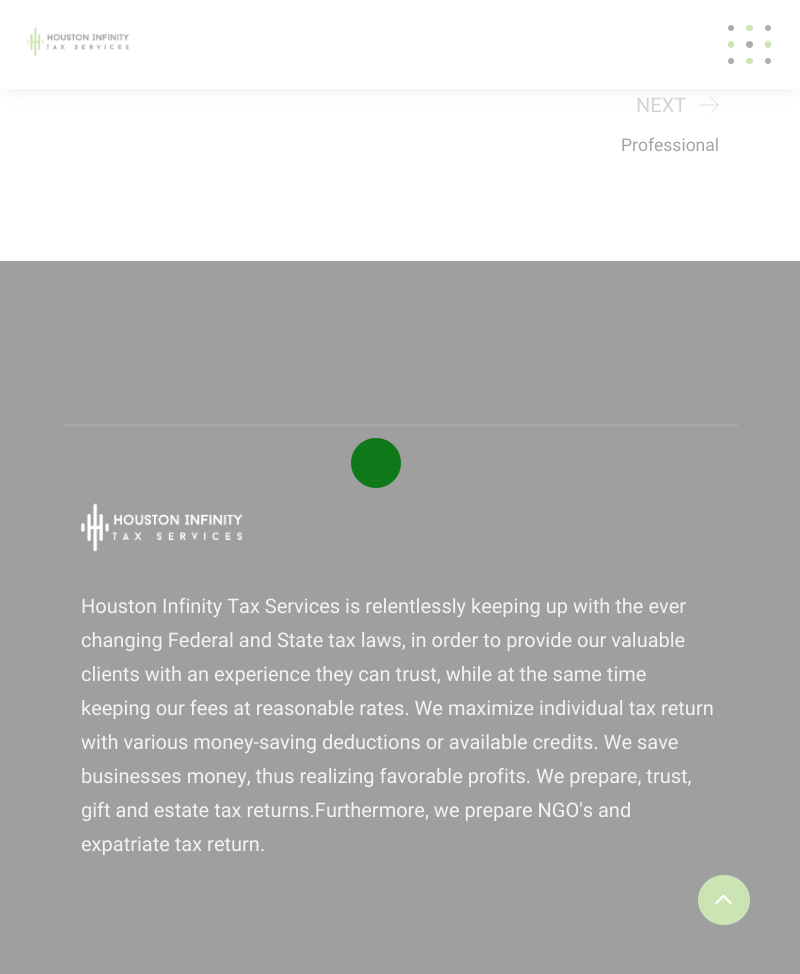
#include <cairo.h>
#include <math.h>
#include <stddef.h>


static void rgb(cairo_t *cr, int r, int g, int b)
{
	cairo_set_source_rgb(cr, r / 255.0, g / 255.0, b / 255.0);
}

static void face(cairo_t *cr, const char *family, double size, int italic, int bold)
{
	cairo_select_font_face(cr, family, italic ? CAIRO_FONT_SLANT_ITALIC : CAIRO_FONT_SLANT_NORMAL,
		bold ? CAIRO_FONT_WEIGHT_BOLD : CAIRO_FONT_WEIGHT_NORMAL);
	cairo_set_font_size(cr, size);
}

static void label(cairo_t *cr, double x, double y, const char *s)
{
	cairo_move_to(cr, x, y);
	cairo_show_text(cr, s);
}

static void rect(cairo_t *cr, double x, double y, double w, double h)
{
	cairo_rectangle(cr, x, y, w, h);
	cairo_fill(cr);
}

static void rrect(cairo_t *cr, double x, double y, double w, double h, double r)
{
	cairo_new_sub_path(cr);
	cairo_arc(cr, x + w - r, y + h - r, r, 0, M_PI / 2);
	cairo_arc(cr, x + r, y + h - r, r, M_PI / 2, M_PI);
	cairo_arc(cr, x + r, y + r, r, M_PI, 1.5 * M_PI);
	cairo_arc(cr, x + w - r, y + r, r, 1.5 * M_PI, 2 * M_PI);
	cairo_close_path(cr);
}

static void soft_shadow(cairo_t *cr, double x, double y, double w, double h, double r, double blur, double alpha)
{
	cairo_push_group_with_content(cr, CAIRO_CONTENT_ALPHA);
	cairo_set_operator(cr, CAIRO_OPERATOR_SOURCE);
	for (int i = 15; i >= -15 && fmin(w, h) + blur * i / 3 > 0; i -= 2) {
		double e = blur * i / 6;
		cairo_set_source_rgba(cr, 0, 0, 0, alpha * erfc((i - 1) / 8.5) / 2);
		rrect(cr, x - e, y - e, w + 2 * e, h + 2 * e, fmax(0, fmin(r + e + blur * .6, fmin(w, h) / 2 + e)));
		cairo_fill(cr);
	}
	cairo_pattern_t *soft = cairo_pop_group(cr);
	cairo_mask(cr, soft);
	cairo_pattern_destroy(soft);
}

static void image(cairo_t *cr, const char *path, double x, double y, double w, double h)
{
	cairo_surface_t *image = cairo_image_surface_create_from_png(path);
	cairo_save(cr);
	cairo_set_source_surface(cr, image, x, y);
	cairo_rectangle(cr, x, y, w, h);
	cairo_fill(cr);
	cairo_restore(cr);
	cairo_surface_destroy(image);
}

static void draw(cairo_t *cr) {
	rgb(cr, 255, 255, 255);
	cairo_paint(cr);
	image(cr, "image1.png", 698, 97, 21, 16);
	rgb(cr, 153, 153, 153);
	soft_shadow(cr, 13, 13, 775, 63, 0, 12.5, 0.8);
	rgb(cr, 255, 255, 255);
	rect(cr, 0, 0, 800, 89);
	image(cr, "image0.png", 26, 27, 104, 30);
	rgb(cr, 173, 173, 173);
	cairo_arc(cr, 731, 28, 3, 0, 2 * M_PI);
	cairo_fill(cr);
	rgb(cr, 204, 228, 179);
	rrect(cr, 746, 25, 7, 6, 3);
	cairo_fill(cr);
	rgb(cr, 173, 173, 173);
	cairo_arc(cr, 768, 28, 3, 0, 2 * M_PI);
	cairo_fill(cr);
	rgb(cr, 204, 228, 179);
	rrect(cr, 728, 41, 6, 7, 3);
	cairo_fill(cr);
	rgb(cr, 173, 173, 173);
	cairo_arc(cr, 749.5, 44.5, 3.5, 0, 2 * M_PI);
	cairo_fill(cr);
	rgb(cr, 204, 228, 179);
	rrect(cr, 765, 41, 6, 7, 3);
	cairo_fill(cr);
	rgb(cr, 173, 173, 173);
	cairo_arc(cr, 731, 61, 3, 0, 2 * M_PI);
	cairo_fill(cr);
	rgb(cr, 204, 228, 179);
	rrect(cr, 746, 58, 7, 6, 3);
	cairo_fill(cr);
	rgb(cr, 173, 173, 173);
	cairo_arc(cr, 768, 61, 3, 0, 2 * M_PI);
	cairo_fill(cr);
	face(cr, "Roboto", 20, 0, 0);
	rgb(cr, 211, 211, 211);
	label(cr, 636, 112, "NEXT");
	face(cr, "Roboto", 17.5, 0, 0);
	rgb(cr, 164, 164, 164);
	label(cr, 621, 151, "Professional");
	rgb(cr, 159, 159, 159);
	rect(cr, 0, 261, 800, 713);
	rgb(cr, 166, 167, 168);
	rect(cr, 63, 424, 675, 3);
	image(cr, "image2.png", 81, 503, 162, 49);
	face(cr, "Roboto", 20, 0, 0);
	rgb(cr, 243, 243, 243);
	label(cr, 81, 613, "Houston Infinity Tax Services is relentlessly keeping up with the ever");
	label(cr, 81, 647, "changing Federal and State tax laws, in order to provide our valuable");
	label(cr, 81, 681, "clients with an experience they can trust, while at the same time");
	label(cr, 81, 715, "keeping our fees at reasonable rates. We maximize individual tax return");
	label(cr, 81, 749, "with various money-saving deductions or available credits. We save");
	label(cr, 81, 783, "businesses money, thus realizing favorable profits. We prepare, trust,");
	label(cr, 81, 817, "gift and estate tax returns.Furthermore, we prepare NGO's and");
	label(cr, 81, 851, "expatriate tax return.");
	rgb(cr, 15, 120, 24);
	cairo_new_path(cr);
	cairo_arc(cr, 376, 463, 25, 0, 2 * M_PI);
	cairo_fill(cr);
	rgb(cr, 204, 228, 179);
	cairo_new_path(cr);
	cairo_move_to(cr, 724, 875);
	cairo_curve_to(cr, 738.5, 875, 750, 886, 750, 900);
	cairo_curve_to(cr, 750, 914, 738.5, 925, 724, 925);
	cairo_curve_to(cr, 709.5, 925, 698, 914, 698, 900);
	cairo_curve_to(cr, 698, 886, 709.5, 875, 724, 875);
	cairo_close_path(cr);
	cairo_fill(cr);
	image(cr, "image3.png", 715, 894, 17, 11);
}

int main(void) {
	cairo_surface_t *surface = cairo_image_surface_create(CAIRO_FORMAT_RGB24, 800, 974);
	cairo_t *cr = cairo_create(surface);
	cairo_font_options_t *options = cairo_font_options_create();
	cairo_font_options_set_hint_metrics(options, CAIRO_HINT_METRICS_OFF);
	cairo_font_options_set_hint_style(options, CAIRO_HINT_STYLE_NONE);
	cairo_set_font_options(cr, options);
	cairo_set_miter_limit(cr, 4);
	draw(cr);
	cairo_surface_write_to_png(surface, "render.png");
	cairo_font_options_destroy(options);
	cairo_destroy(cr);
	cairo_surface_destroy(surface);
	return 0;
}
